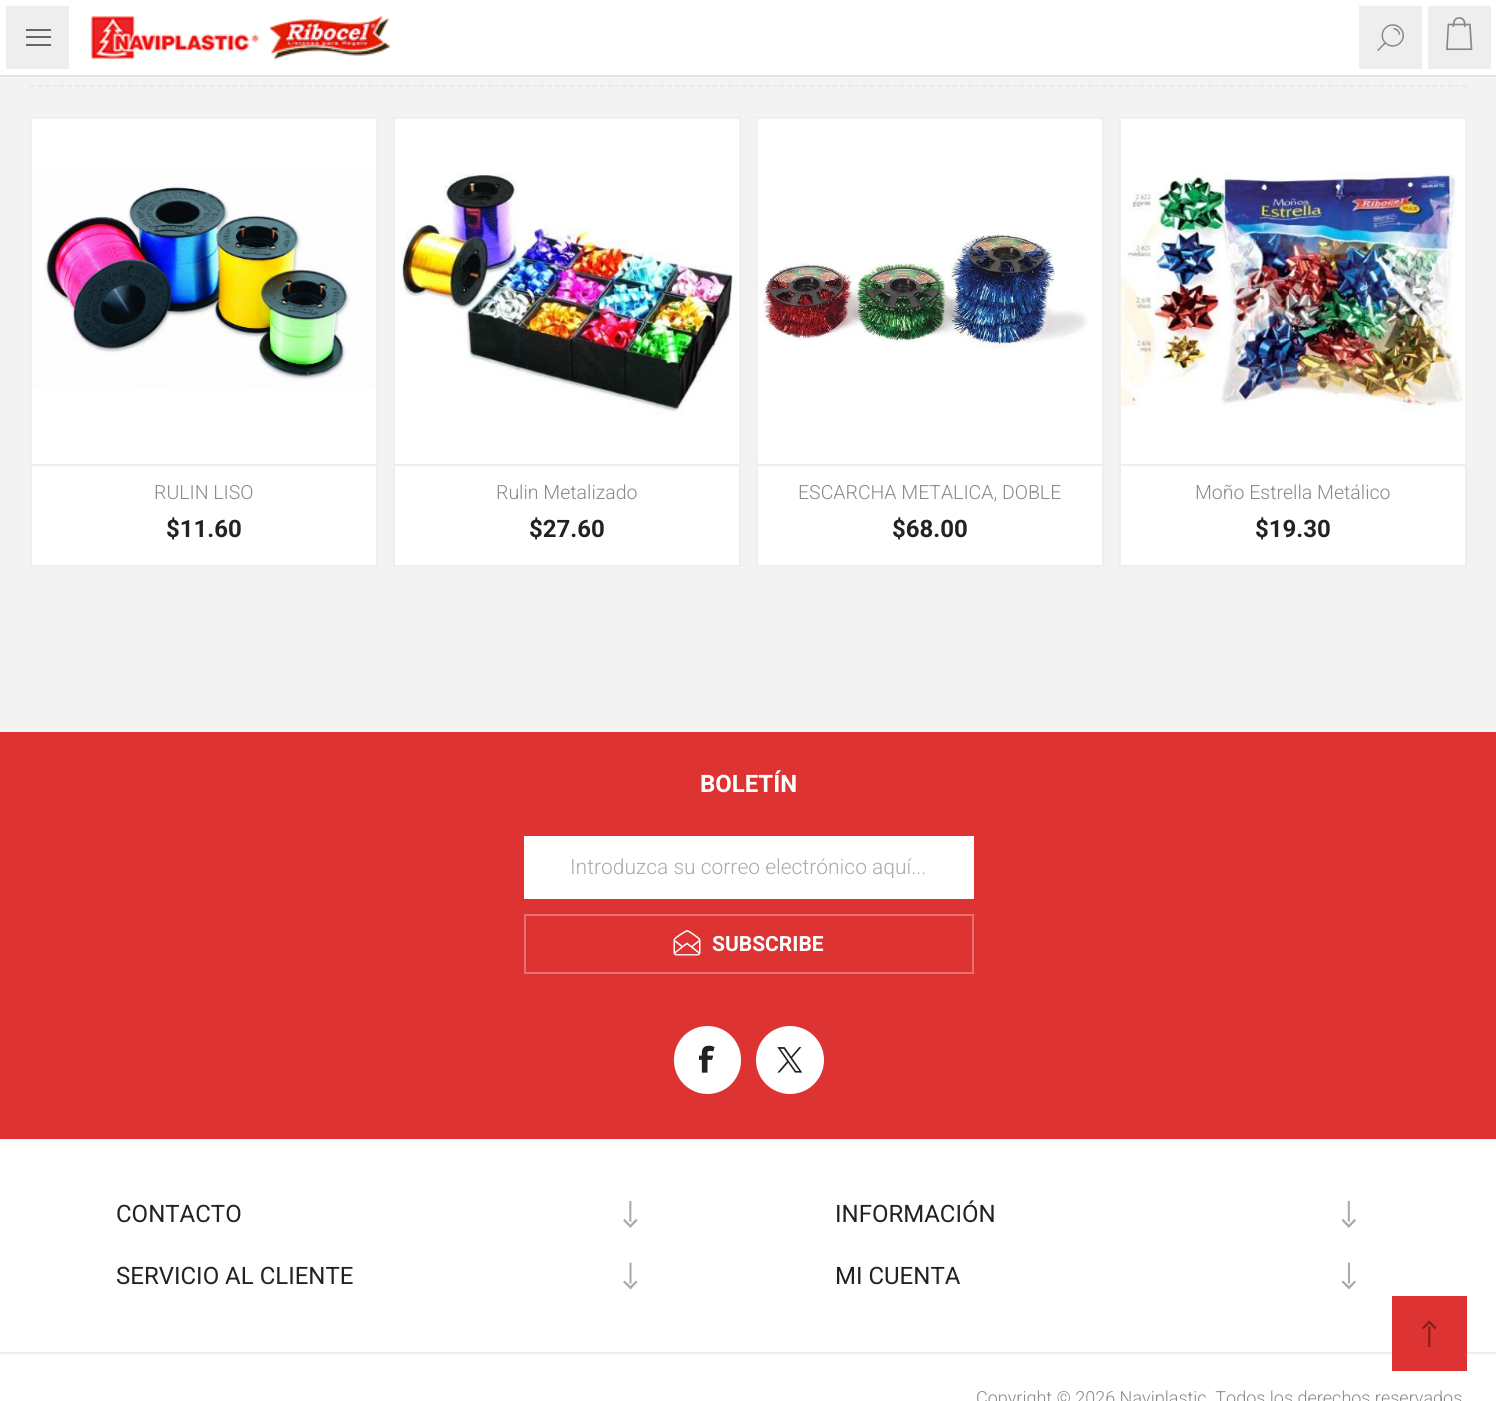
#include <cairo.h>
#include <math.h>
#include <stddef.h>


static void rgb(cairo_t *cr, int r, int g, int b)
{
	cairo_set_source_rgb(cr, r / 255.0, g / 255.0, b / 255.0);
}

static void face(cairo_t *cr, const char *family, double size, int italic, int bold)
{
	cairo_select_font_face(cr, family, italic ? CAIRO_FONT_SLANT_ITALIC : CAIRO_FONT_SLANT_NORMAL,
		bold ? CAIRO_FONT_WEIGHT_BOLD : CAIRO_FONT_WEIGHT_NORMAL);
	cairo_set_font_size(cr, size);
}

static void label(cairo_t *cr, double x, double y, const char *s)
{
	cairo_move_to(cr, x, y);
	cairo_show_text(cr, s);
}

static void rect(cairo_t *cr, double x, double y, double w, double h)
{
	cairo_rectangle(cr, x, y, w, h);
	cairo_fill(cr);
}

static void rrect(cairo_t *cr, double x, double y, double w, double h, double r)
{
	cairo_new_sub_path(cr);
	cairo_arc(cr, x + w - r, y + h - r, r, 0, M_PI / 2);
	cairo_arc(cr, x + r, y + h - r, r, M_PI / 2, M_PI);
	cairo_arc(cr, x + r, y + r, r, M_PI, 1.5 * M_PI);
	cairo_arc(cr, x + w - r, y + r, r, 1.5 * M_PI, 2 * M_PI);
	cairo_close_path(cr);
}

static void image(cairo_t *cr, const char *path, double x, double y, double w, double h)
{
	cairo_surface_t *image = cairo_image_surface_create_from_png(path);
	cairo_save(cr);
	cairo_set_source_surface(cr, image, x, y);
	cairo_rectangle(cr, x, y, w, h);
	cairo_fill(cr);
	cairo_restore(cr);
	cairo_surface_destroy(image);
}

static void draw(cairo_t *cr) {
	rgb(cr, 243, 243, 243);
	cairo_paint(cr);
	rgb(cr, 227, 227, 227);
	rect(cr, 0, 75, 1496, 2);
	rgb(cr, 255, 255, 255);
	rect(cr, 75, 0, 1347, 75);
	image(cr, "image0.png", 91, 15, 299, 45);
	rgb(cr, 238, 238, 238);
	rect(cr, 1359, 6, 63, 63);
	image(cr, "image1.png", 1377, 24, 27, 27);
	cairo_rectangle(cr, 3, 3, 69, 69);
	cairo_fill_preserve(cr);
	rgb(cr, 255, 255, 255);
	cairo_set_line_width(cr, 6);
	cairo_stroke(cr);
	rgb(cr, 102, 102, 102);
	rect(cr, 26, 29, 25, 2);
	rect(cr, 26, 36, 25, 2);
	rect(cr, 26, 44, 25, 2);
	rgb(cr, 238, 238, 238);
	cairo_rectangle(cr, 1425, 3, 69, 69);
	cairo_fill_preserve(cr);
	rgb(cr, 255, 255, 255);
	cairo_stroke(cr);
	image(cr, "image2.png", 1446, 17, 27, 34);
	cairo_new_path(cr);
	cairo_move_to(cr, 30, 86);
	cairo_line_to(cr, 1467, 86);
	rgb(cr, 230, 230, 230);
	cairo_set_line_width(cr, 1.5);
	cairo_set_dash(cr, (double[]){4.5, 3}, 2, 0);
	cairo_stroke(cr);
	rgb(cr, 255, 255, 255);
	rect(cr, 32, 463, 344, 102);
	cairo_rectangle(cr, 31, 118, 346, 448);
	rgb(cr, 238, 238, 238);
	cairo_set_line_width(cr, 2);
	cairo_set_dash(cr, NULL, 0, 0);
	cairo_stroke(cr);
	rect(cr, 32, 464, 345, 2);
	image(cr, "image3.png", 31, 118, 346, 345);
	face(cr, "Roboto Light", 19.5, 0, 0);
	rgb(cr, 136, 136, 136);
	label(cr, 154, 499, "RULIN LISO");
	face(cr, "Roboto", 24, 0, 1);
	rgb(cr, 34, 34, 34);
	label(cr, 166, 537, "$11.60");
	rgb(cr, 255, 255, 255);
	rect(cr, 395, 463, 344, 102);
	cairo_rectangle(cr, 394, 118, 346, 448);
	rgb(cr, 238, 238, 238);
	cairo_stroke(cr);
	rect(cr, 395, 464, 345, 2);
	image(cr, "image4.png", 394, 118, 346, 345);
	face(cr, "Roboto Light", 19.5, 0, 0);
	rgb(cr, 136, 136, 136);
	label(cr, 496, 499, "Rulin Metalizado");
	face(cr, "Roboto", 24, 0, 1);
	rgb(cr, 34, 34, 34);
	label(cr, 529, 537, "$27.60");
	rgb(cr, 255, 255, 255);
	rect(cr, 758, 463, 344, 102);
	cairo_rectangle(cr, 757, 118, 346, 448);
	rgb(cr, 238, 238, 238);
	cairo_stroke(cr);
	rect(cr, 758, 464, 345, 2);
	image(cr, "image5.png", 757, 118, 346, 345);
	face(cr, "Roboto Light", 19.5, 0, 0);
	rgb(cr, 136, 136, 136);
	label(cr, 798, 499, "ESCARCHA METALICA, DOBLE");
	face(cr, "Roboto", 24, 0, 1);
	rgb(cr, 34, 34, 34);
	label(cr, 892, 537, "$68.00");
	rgb(cr, 255, 255, 255);
	rect(cr, 1121, 463, 344, 102);
	cairo_rectangle(cr, 1120, 118, 346, 448);
	rgb(cr, 238, 238, 238);
	cairo_stroke(cr);
	rect(cr, 1121, 464, 345, 2);
	image(cr, "image6.png", 1120, 118, 346, 345);
	face(cr, "Roboto Light", 19.5, 0, 0);
	rgb(cr, 136, 136, 136);
	label(cr, 1195, 499, "Moño Estrella Metálico");
	face(cr, "Roboto", 24, 0, 1);
	rgb(cr, 34, 34, 34);
	label(cr, 1255, 537, "$19.30");
	rgb(cr, 255, 255, 255);
	rect(cr, 0, 1139, 1496, 213);
	rgb(cr, 221, 51, 51);
	rect(cr, 0, 732, 1496, 407);
	rgb(cr, 255, 255, 255);
	label(cr, 700, 792, "BOLETÍN");
	rect(cr, 524, 836, 450, 63);
	face(cr, "Roboto Light", 21, 0, 0);
	rgb(cr, 170, 170, 170);
	label(cr, 570, 874, "Introduzca su correo electrónico aquí...");
	image(cr, "image7.png", 673, 930, 28, 26);
	cairo_rectangle(cr, 525, 915, 448, 58);
	rgb(cr, 231, 112, 112);
	cairo_stroke(cr);
	face(cr, "Roboto", 21, 0, 1);
	rgb(cr, 255, 255, 255);
	label(cr, 712, 951, "SUBSCRIBE");
	rrect(cr, 674, 1026, 67, 68, 33.5);
	cairo_fill(cr);
	image(cr, "image8.png", 699, 1045, 16, 28);
	cairo_arc(cr, 790, 1060, 34, 0, 2 * M_PI);
	cairo_fill(cr);
	image(cr, "image9.png", 777, 1047, 26, 26);
	face(cr, "Roboto", 24, 0, 0);
	rgb(cr, 34, 34, 34);
	label(cr, 116, 1222, "CONTACTO");
	image(cr, "image10.png", 623, 1201, 15, 27);
	label(cr, 835, 1222, "INFORMACIÓN");
	image(cr, "image11.png", 1341, 1201, 15, 27);
	label(cr, 116, 1284, "SERVICIO AL CLIENTE");
	rgb(cr, 170, 170, 170);
	cairo_new_path(cr);
	cairo_move_to(cr, 631.5, 1283.5);
	cairo_line_to(cr, 629.5, 1283.5);
	cairo_line_to(cr, 629.5, 1262.5);
	cairo_line_to(cr, 631.5, 1262.5);
	cairo_close_path(cr);
	cairo_move_to(cr, 637.5, 1282);
	cairo_line_to(cr, 636, 1280.5);
	cairo_line_to(cr, 630.5, 1286);
	cairo_line_to(cr, 624.5, 1280.5);
	cairo_line_to(cr, 623, 1282);
	cairo_line_to(cr, 630.5, 1289.5);
	cairo_close_path(cr);
	cairo_fill(cr);
	rgb(cr, 34, 34, 34);
	label(cr, 835, 1284, "MI CUENTA");
	rgb(cr, 170, 170, 170);
	cairo_new_path(cr);
	cairo_move_to(cr, 1350, 1283.5);
	cairo_line_to(cr, 1348, 1283.5);
	cairo_line_to(cr, 1348, 1262.5);
	cairo_line_to(cr, 1350, 1262.5);
	cairo_close_path(cr);
	cairo_move_to(cr, 1356, 1282);
	cairo_line_to(cr, 1354.5, 1280.5);
	cairo_line_to(cr, 1349, 1286);
	cairo_line_to(cr, 1343, 1280.5);
	cairo_line_to(cr, 1341.5, 1282);
	cairo_line_to(cr, 1349, 1289.5);
	cairo_close_path(cr);
	cairo_fill(cr);
	rgb(cr, 255, 255, 255);
	rect(cr, 0, 1354, 1496, 47);
	rgb(cr, 238, 238, 238);
	rect(cr, 0, 1352, 1496, 2);
	face(cr, "Roboto Light", 18, 0, 0);
	rgb(cr, 136, 136, 136);
	label(cr, 976, 1404, "Copyright © 2026 Naviplastic. Todos los derechos reservados");
	rgb(cr, 221, 51, 51);
	rect(cr, 1392, 1296, 75, 75);
	image(cr, "image12.png", 1422, 1320, 15, 28);
}

int main(void) {
	cairo_surface_t *surface = cairo_image_surface_create(CAIRO_FORMAT_RGB24, 1496, 1401);
	cairo_t *cr = cairo_create(surface);
	cairo_font_options_t *options = cairo_font_options_create();
	cairo_font_options_set_hint_metrics(options, CAIRO_HINT_METRICS_OFF);
	cairo_font_options_set_hint_style(options, CAIRO_HINT_STYLE_NONE);
	cairo_set_font_options(cr, options);
	cairo_set_miter_limit(cr, 4);
	draw(cr);
	cairo_surface_write_to_png(surface, "render.png");
	cairo_font_options_destroy(options);
	cairo_destroy(cr);
	cairo_surface_destroy(surface);
	return 0;
}
